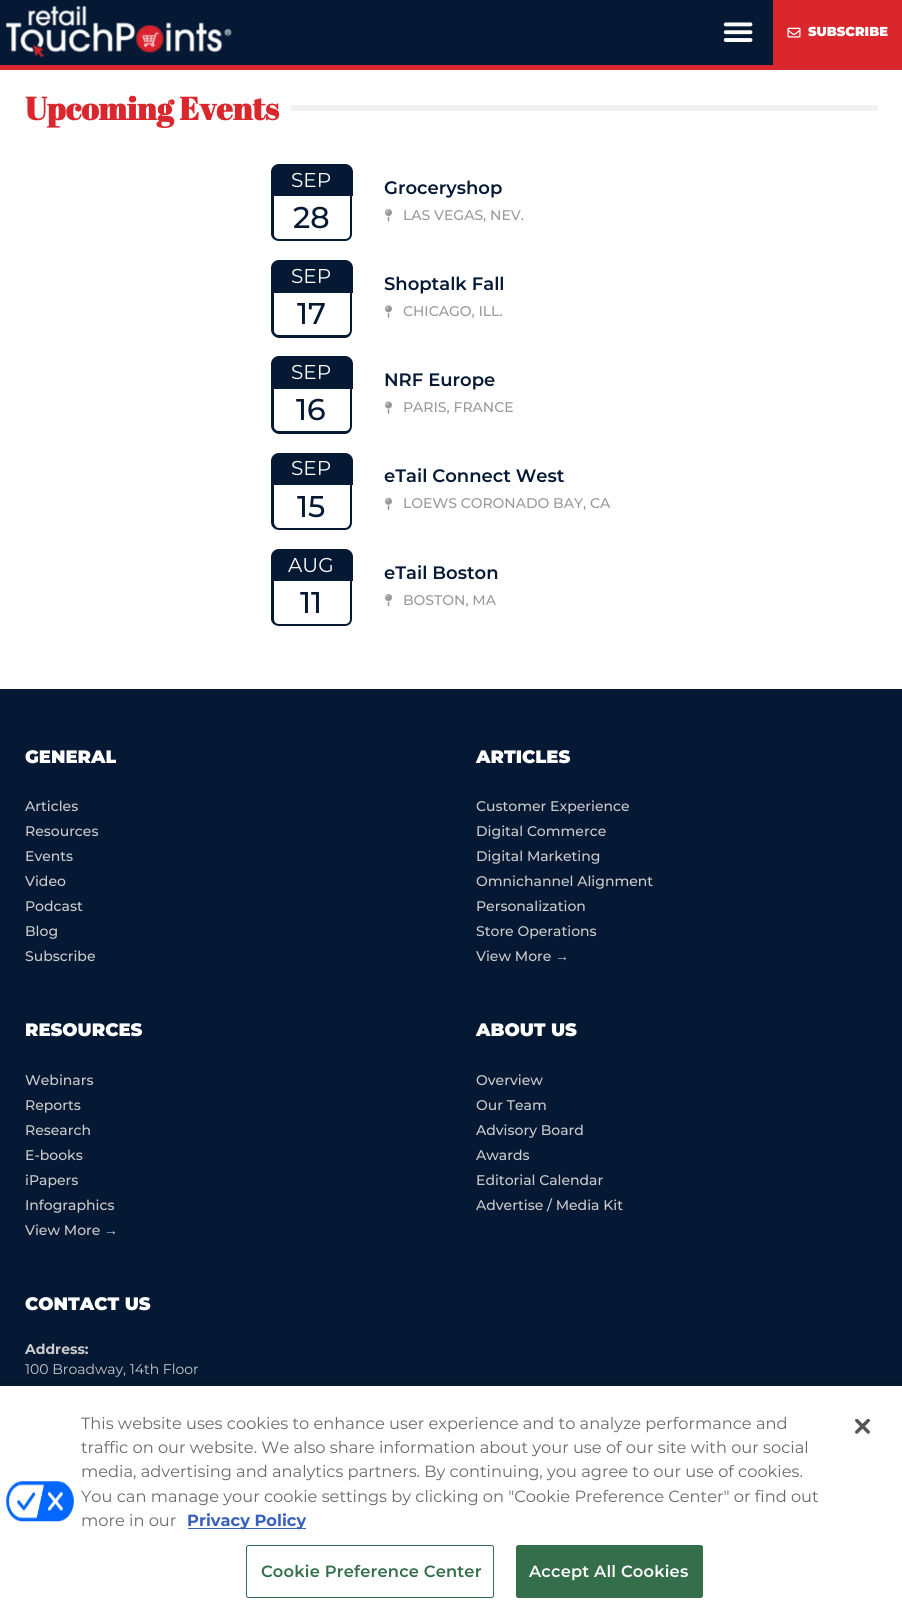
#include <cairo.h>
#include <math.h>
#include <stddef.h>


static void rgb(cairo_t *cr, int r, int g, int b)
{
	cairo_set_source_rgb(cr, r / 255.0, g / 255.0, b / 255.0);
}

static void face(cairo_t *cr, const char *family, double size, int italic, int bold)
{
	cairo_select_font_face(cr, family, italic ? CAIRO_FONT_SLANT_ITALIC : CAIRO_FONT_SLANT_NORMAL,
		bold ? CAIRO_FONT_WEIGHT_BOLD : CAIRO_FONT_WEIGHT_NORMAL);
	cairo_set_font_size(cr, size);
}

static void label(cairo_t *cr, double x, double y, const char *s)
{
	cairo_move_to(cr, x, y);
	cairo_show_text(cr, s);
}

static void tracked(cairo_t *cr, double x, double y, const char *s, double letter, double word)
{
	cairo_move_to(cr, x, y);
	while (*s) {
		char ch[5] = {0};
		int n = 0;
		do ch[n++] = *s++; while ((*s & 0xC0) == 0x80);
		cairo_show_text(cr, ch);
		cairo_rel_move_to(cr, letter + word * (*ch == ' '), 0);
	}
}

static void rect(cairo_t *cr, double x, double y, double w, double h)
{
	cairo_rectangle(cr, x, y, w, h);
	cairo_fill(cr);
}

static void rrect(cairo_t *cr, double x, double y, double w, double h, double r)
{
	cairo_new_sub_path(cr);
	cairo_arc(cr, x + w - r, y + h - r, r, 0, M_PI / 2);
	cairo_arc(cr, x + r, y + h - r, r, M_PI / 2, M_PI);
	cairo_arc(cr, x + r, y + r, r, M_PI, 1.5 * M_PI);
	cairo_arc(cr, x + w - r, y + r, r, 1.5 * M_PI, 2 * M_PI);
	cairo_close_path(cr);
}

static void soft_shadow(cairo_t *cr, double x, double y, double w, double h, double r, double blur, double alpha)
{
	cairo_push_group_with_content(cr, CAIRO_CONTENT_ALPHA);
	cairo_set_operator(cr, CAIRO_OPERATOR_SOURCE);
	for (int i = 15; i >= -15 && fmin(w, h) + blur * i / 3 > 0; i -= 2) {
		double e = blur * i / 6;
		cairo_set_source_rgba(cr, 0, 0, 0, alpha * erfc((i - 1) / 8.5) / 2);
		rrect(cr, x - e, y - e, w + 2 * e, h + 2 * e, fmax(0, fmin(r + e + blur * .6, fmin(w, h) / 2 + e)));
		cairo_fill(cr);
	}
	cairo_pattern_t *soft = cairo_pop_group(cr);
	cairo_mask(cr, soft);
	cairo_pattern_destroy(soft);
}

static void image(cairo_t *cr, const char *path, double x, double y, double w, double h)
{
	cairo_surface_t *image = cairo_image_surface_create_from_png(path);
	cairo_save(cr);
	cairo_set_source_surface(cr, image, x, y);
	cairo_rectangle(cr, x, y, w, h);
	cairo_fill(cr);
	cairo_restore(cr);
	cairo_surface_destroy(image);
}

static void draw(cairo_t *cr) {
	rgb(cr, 255, 255, 255);
	cairo_paint(cr);
	rgb(cr, 5, 25, 52);
	rect(cr, 0, 0, 773, 65);
	rgb(cr, 217, 39, 45);
	rect(cr, 0, 65, 902, 5);
	image(cr, "image0.png", 6, 6, 226, 52);
	rgb(cr, 5, 24, 49);
	rect(cr, 723, 16, 31, 32);
	image(cr, "image1.png", 723, 22, 30, 20);
	rgb(cr, 217, 39, 45);
	rect(cr, 773, 0, 129, 65);
	image(cr, "image2.png", 787, 27, 14, 11);
	face(cr, "Montserrat Black", 13, 0, 0);
	rgb(cr, 255, 255, 255);
	label(cr, 808, 36, "SUBSCRIBE");
	face(cr, "Abril Fatface", 32, 0, 1);
	rgb(cr, 217, 39, 45);
	label(cr, 25, 120, "Upcoming Events");
	rgb(cr, 242, 242, 242);
	rect(cr, 291, 105, 587, 6);
	rgb(cr, 5, 25, 52);
	cairo_new_path(cr);
	cairo_move_to(cr, 279, 164);
	cairo_line_to(cr, 345, 164);
	cairo_curve_to(cr, 349.5, 164, 353, 167.5, 353, 172);
	cairo_line_to(cr, 353, 196);
	cairo_line_to(cr, 271, 196);
	cairo_line_to(cr, 271, 172);
	cairo_curve_to(cr, 271, 167.5, 274.5, 164, 279, 164);
	cairo_close_path(cr);
	cairo_fill(cr);
	face(cr, "Montserrat", 20, 0, 0);
	rgb(cr, 255, 255, 255);
	label(cr, 291, 187, "SEP");
	rgb(cr, 5, 25, 52);
	cairo_set_fill_rule(cr, CAIRO_FILL_RULE_EVEN_ODD);
	cairo_new_path(cr);
	cairo_move_to(cr, 271, 196);
	cairo_line_to(cr, 352, 196);
	cairo_line_to(cr, 352, 234);
	cairo_curve_to(cr, 352, 238, 349, 241, 345, 241);
	cairo_line_to(cr, 279, 241);
	cairo_curve_to(cr, 275, 241, 271, 238, 271, 234);
	cairo_close_path(cr);
	cairo_move_to(cr, 274, 196);
	cairo_line_to(cr, 350, 196);
	cairo_line_to(cr, 350, 234);
	cairo_curve_to(cr, 350, 237, 348, 239, 345, 239);
	cairo_line_to(cr, 279, 239);
	cairo_curve_to(cr, 276, 239, 274, 237, 274, 234);
	cairo_close_path(cr);
	cairo_fill(cr);
	face(cr, "Montserrat Medium", 30, 0, 0);
	label(cr, 293, 228, "28");
	face(cr, "Montserrat SemiBold", 18, 0, 0);
	label(cr, 384, 194, "Groceryshop");
	image(cr, "image3.png", 385, 209, 7, 13);
	face(cr, "Montserrat Medium", 14, 0, 0);
	rgb(cr, 153, 153, 153);
	label(cr, 403, 220, "LAS VEGAS, NEV.");
	rgb(cr, 5, 25, 52);
	cairo_new_path(cr);
	cairo_move_to(cr, 279, 260);
	cairo_line_to(cr, 345, 260);
	cairo_curve_to(cr, 349.5, 260, 353, 263.5, 353, 268);
	cairo_line_to(cr, 353, 293);
	cairo_line_to(cr, 271, 293);
	cairo_line_to(cr, 271, 268);
	cairo_curve_to(cr, 271, 263.5, 274.5, 260, 279, 260);
	cairo_close_path(cr);
	cairo_fill(cr);
	face(cr, "Montserrat", 20, 0, 0);
	rgb(cr, 255, 255, 255);
	label(cr, 291, 283, "SEP");
	rgb(cr, 5, 25, 52);
	cairo_new_path(cr);
	cairo_move_to(cr, 271, 292);
	cairo_line_to(cr, 352, 292);
	cairo_line_to(cr, 352, 330);
	cairo_curve_to(cr, 352, 334, 349, 338, 345, 338);
	cairo_line_to(cr, 279, 338);
	cairo_curve_to(cr, 275, 338, 271, 334, 271, 330);
	cairo_close_path(cr);
	cairo_move_to(cr, 274, 292);
	cairo_line_to(cr, 350, 292);
	cairo_line_to(cr, 350, 330);
	cairo_curve_to(cr, 350, 333, 348, 335, 345, 335);
	cairo_line_to(cr, 279, 335);
	cairo_curve_to(cr, 276, 335, 274, 333, 274, 330);
	cairo_close_path(cr);
	cairo_fill(cr);
	face(cr, "Montserrat Medium", 30, 0, 0);
	label(cr, 297, 324, "17");
	face(cr, "Montserrat SemiBold", 18, 0, 0);
	label(cr, 384, 290, "Shoptalk Fall");
	image(cr, "image4.png", 385, 305, 7, 13);
	face(cr, "Montserrat Medium", 14, 0, 0);
	rgb(cr, 153, 153, 153);
	label(cr, 403, 316, "CHICAGO, ILL.");
	rgb(cr, 5, 25, 52);
	cairo_new_path(cr);
	cairo_move_to(cr, 279, 356);
	cairo_line_to(cr, 345, 356);
	cairo_curve_to(cr, 349.5, 356, 353, 359.5, 353, 364);
	cairo_line_to(cr, 353, 389);
	cairo_line_to(cr, 271, 389);
	cairo_line_to(cr, 271, 364);
	cairo_curve_to(cr, 271, 359.5, 274.5, 356, 279, 356);
	cairo_close_path(cr);
	cairo_fill(cr);
	face(cr, "Montserrat", 20, 0, 0);
	rgb(cr, 255, 255, 255);
	label(cr, 291, 379, "SEP");
	rgb(cr, 5, 25, 52);
	cairo_new_path(cr);
	cairo_move_to(cr, 271, 389);
	cairo_line_to(cr, 352, 389);
	cairo_line_to(cr, 352, 426);
	cairo_curve_to(cr, 352, 430, 349, 434, 345, 434);
	cairo_line_to(cr, 279, 434);
	cairo_curve_to(cr, 275, 434, 271, 430, 271, 426);
	cairo_close_path(cr);
	cairo_move_to(cr, 274, 389);
	cairo_line_to(cr, 350, 389);
	cairo_line_to(cr, 350, 426);
	cairo_curve_to(cr, 350, 429, 348, 431, 345, 431);
	cairo_line_to(cr, 279, 431);
	cairo_curve_to(cr, 276, 431, 274, 429, 274, 426);
	cairo_close_path(cr);
	cairo_fill(cr);
	face(cr, "Montserrat Medium", 30, 0, 0);
	label(cr, 296, 420, "16");
	face(cr, "Montserrat SemiBold", 18, 0, 0);
	label(cr, 384, 386, "NRF Europe");
	image(cr, "image5.png", 385, 401, 7, 13);
	face(cr, "Montserrat Medium", 14, 0, 0);
	rgb(cr, 153, 153, 153);
	label(cr, 403, 412, "PARIS, FRANCE");
	rgb(cr, 5, 25, 52);
	cairo_new_path(cr);
	cairo_move_to(cr, 279, 453);
	cairo_line_to(cr, 345, 453);
	cairo_curve_to(cr, 349.5, 453, 353, 456.5, 353, 461);
	cairo_line_to(cr, 353, 485);
	cairo_line_to(cr, 271, 485);
	cairo_line_to(cr, 271, 461);
	cairo_curve_to(cr, 271, 456.5, 274.5, 453, 279, 453);
	cairo_close_path(cr);
	cairo_fill(cr);
	face(cr, "Montserrat", 20, 0, 0);
	rgb(cr, 255, 255, 255);
	label(cr, 291, 475, "SEP");
	rgb(cr, 5, 25, 52);
	cairo_new_path(cr);
	cairo_move_to(cr, 271, 485);
	cairo_line_to(cr, 352, 485);
	cairo_line_to(cr, 352, 522);
	cairo_curve_to(cr, 352, 527, 349, 530, 345, 530);
	cairo_line_to(cr, 279, 530);
	cairo_curve_to(cr, 275, 530, 271, 527, 271, 522);
	cairo_close_path(cr);
	cairo_move_to(cr, 274, 485);
	cairo_line_to(cr, 350, 485);
	cairo_line_to(cr, 350, 522);
	cairo_curve_to(cr, 350, 525, 348, 528, 345, 528);
	cairo_line_to(cr, 279, 528);
	cairo_curve_to(cr, 276, 528, 274, 525, 274, 522);
	cairo_close_path(cr);
	cairo_fill(cr);
	face(cr, "Montserrat Medium", 30, 0, 0);
	label(cr, 297, 517, "15");
	face(cr, "Montserrat SemiBold", 18, 0, 0);
	label(cr, 384, 482, "eTail Connect West");
	image(cr, "image6.png", 385, 497, 7, 14);
	face(cr, "Montserrat Medium", 14, 0, 0);
	rgb(cr, 153, 153, 153);
	label(cr, 403, 508, "LOEWS CORONADO BAY, CA");
	rgb(cr, 5, 25, 52);
	cairo_new_path(cr);
	cairo_move_to(cr, 279, 549);
	cairo_line_to(cr, 345, 549);
	cairo_curve_to(cr, 349.5, 549, 353, 552.5, 353, 557);
	cairo_line_to(cr, 353, 581);
	cairo_line_to(cr, 271, 581);
	cairo_line_to(cr, 271, 557);
	cairo_curve_to(cr, 271, 552.5, 274.5, 549, 279, 549);
	cairo_close_path(cr);
	cairo_fill(cr);
	face(cr, "Montserrat", 20, 0, 0);
	rgb(cr, 255, 255, 255);
	label(cr, 288, 572, "AUG");
	rgb(cr, 5, 25, 52);
	cairo_new_path(cr);
	cairo_move_to(cr, 271, 581);
	cairo_line_to(cr, 352, 581);
	cairo_line_to(cr, 352, 619);
	cairo_curve_to(cr, 352, 623, 349, 626, 345, 626);
	cairo_line_to(cr, 279, 626);
	cairo_curve_to(cr, 275, 626, 271, 623, 271, 619);
	cairo_close_path(cr);
	cairo_move_to(cr, 274, 581);
	cairo_line_to(cr, 350, 581);
	cairo_line_to(cr, 350, 619);
	cairo_curve_to(cr, 350, 622, 348, 624, 345, 624);
	cairo_line_to(cr, 279, 624);
	cairo_curve_to(cr, 276, 624, 274, 622, 274, 619);
	cairo_close_path(cr);
	cairo_fill(cr);
	face(cr, "Montserrat Medium", 30, 0, 0);
	label(cr, 300, 613, "11");
	face(cr, "Montserrat SemiBold", 18, 0, 0);
	label(cr, 384, 579, "eTail Boston");
	image(cr, "image3.png", 385, 594, 7, 13);
	face(cr, "Montserrat Medium", 14, 0, 0);
	rgb(cr, 153, 153, 153);
	label(cr, 403, 605, "BOSTON, MA");
	rgb(cr, 5, 25, 52);
	rect(cr, 0, 689, 902, 697);
	face(cr, "Montserrat Black", 18, 0, 0);
	rgb(cr, 255, 255, 255);
	label(cr, 25, 763, "GENERAL");
	face(cr, "Montserrat Medium", 14, 0, 0);
	rgb(cr, 204, 204, 204);
	label(cr, 25, 811, "Articles");
	label(cr, 25, 836, "Resources");
	label(cr, 25, 861, "Events");
	label(cr, 25, 886, "Video");
	label(cr, 25, 911, "Podcast");
	label(cr, 25, 936, "Blog");
	label(cr, 25, 961, "Subscribe");
	face(cr, "Montserrat Black", 18, 0, 0);
	rgb(cr, 255, 255, 255);
	label(cr, 476, 763, "ARTICLES");
	face(cr, "Montserrat Medium", 14, 0, 0);
	rgb(cr, 204, 204, 204);
	label(cr, 476, 811, "Customer Experience");
	label(cr, 476, 836, "Digital Commerce");
	label(cr, 476, 861, "Digital Marketing");
	label(cr, 476, 886, "Omnichannel Alignment");
	label(cr, 476, 911, "Personalization");
	label(cr, 476, 936, "Store Operations");
	label(cr, 476, 961, "View More");
	face(cr, "Liberation Sans", 14, 0, 0);
	label(cr, 555, 961, "→");
	face(cr, "Montserrat Black", 18, 0, 0);
	rgb(cr, 255, 255, 255);
	label(cr, 25, 1036, "RESOURCES");
	face(cr, "Montserrat Medium", 14, 0, 0);
	rgb(cr, 204, 204, 204);
	label(cr, 25, 1085, "Webinars");
	label(cr, 25, 1110, "Reports");
	label(cr, 25, 1135, "Research");
	label(cr, 25, 1160, "E-books");
	label(cr, 25, 1185, "iPapers");
	label(cr, 25, 1210, "Infographics");
	label(cr, 25, 1235, "View More");
	face(cr, "Liberation Sans", 14, 0, 0);
	label(cr, 104, 1235, "→");
	face(cr, "Montserrat Black", 18, 0, 0);
	rgb(cr, 255, 255, 255);
	label(cr, 476, 1036, "ABOUT US");
	face(cr, "Montserrat Medium", 14, 0, 0);
	rgb(cr, 204, 204, 204);
	label(cr, 476, 1085, "Overview");
	label(cr, 476, 1110, "Our Team");
	label(cr, 476, 1135, "Advisory Board");
	label(cr, 476, 1160, "Awards");
	label(cr, 476, 1185, "Editorial Calendar");
	label(cr, 476, 1210, "Advertise / Media Kit");
	face(cr, "Montserrat Black", 18, 0, 0);
	rgb(cr, 255, 255, 255);
	label(cr, 25, 1310, "CONTACT US");
	face(cr, "Montserrat", 14, 0, 1);
	rgb(cr, 204, 204, 204);
	label(cr, 25, 1354, "Address:");
	face(cr, "Montserrat", 14, 0, 0);
	label(cr, 25, 1374, "100 Broadway, 14th Floor");
	rgb(cr, 0, 0, 0);
	soft_shadow(cr, 0, 1386, 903, 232, 0, 11, 0.2);
	rgb(cr, 255, 255, 255);
	rect(cr, 0, 1386, 902, 231);
	image(cr, "image7.png", 6, 1481, 68, 41);
	face(cr, "Montserrat", 16.25, 0, 0);
	rgb(cr, 105, 105, 105);
	label(cr, 81, 1429, "This website uses cookies to enhance user experience and to analyze performance and");
	label(cr, 81, 1453, "traffic on our website. We also share information about your use of our site with our social");
	label(cr, 81, 1477, "media, advertising and analytics partners. By continuing, you agree to our use of cookies.");
	label(cr, 81, 1502, "You can manage your cookie settings by clicking on \"Cookie Preference Center\" or find out");
	label(cr, 81, 1526, "more in our");
	rgb(cr, 56, 96, 190);
	rect(cr, 188, 1528, 118, 1);
	face(cr, "Montserrat", 16.25, 0, 1);
	label(cr, 187, 1526, "Privacy Policy");
	rrect(cr, 246.5, 1545.5, 247, 52, 2);
	rgb(cr, 52, 110, 74);
	cairo_set_line_width(cr, 1);
	cairo_stroke(cr);
	face(cr, "Montserrat SemiBold", 16.25, 0, 0);
	tracked(cr, 261, 1577, "Cookie Preference Center", 0.2, 0);
	rrect(cr, 516.5, 1545.5, 186, 52, 2);
	cairo_fill_preserve(cr);
	cairo_stroke(cr);
	rgb(cr, 255, 255, 255);
	tracked(cr, 529, 1577, "Accept All Cookies", 0.2, 0);
	image(cr, "image8.png", 855, 1419, 15, 15);
}

int main(void) {
	cairo_surface_t *surface = cairo_image_surface_create(CAIRO_FORMAT_RGB24, 902, 1617);
	cairo_t *cr = cairo_create(surface);
	cairo_font_options_t *options = cairo_font_options_create();
	cairo_font_options_set_hint_metrics(options, CAIRO_HINT_METRICS_OFF);
	cairo_font_options_set_hint_style(options, CAIRO_HINT_STYLE_NONE);
	cairo_set_font_options(cr, options);
	cairo_set_miter_limit(cr, 4);
	draw(cr);
	cairo_surface_write_to_png(surface, "render.png");
	cairo_font_options_destroy(options);
	cairo_destroy(cr);
	cairo_surface_destroy(surface);
	return 0;
}
